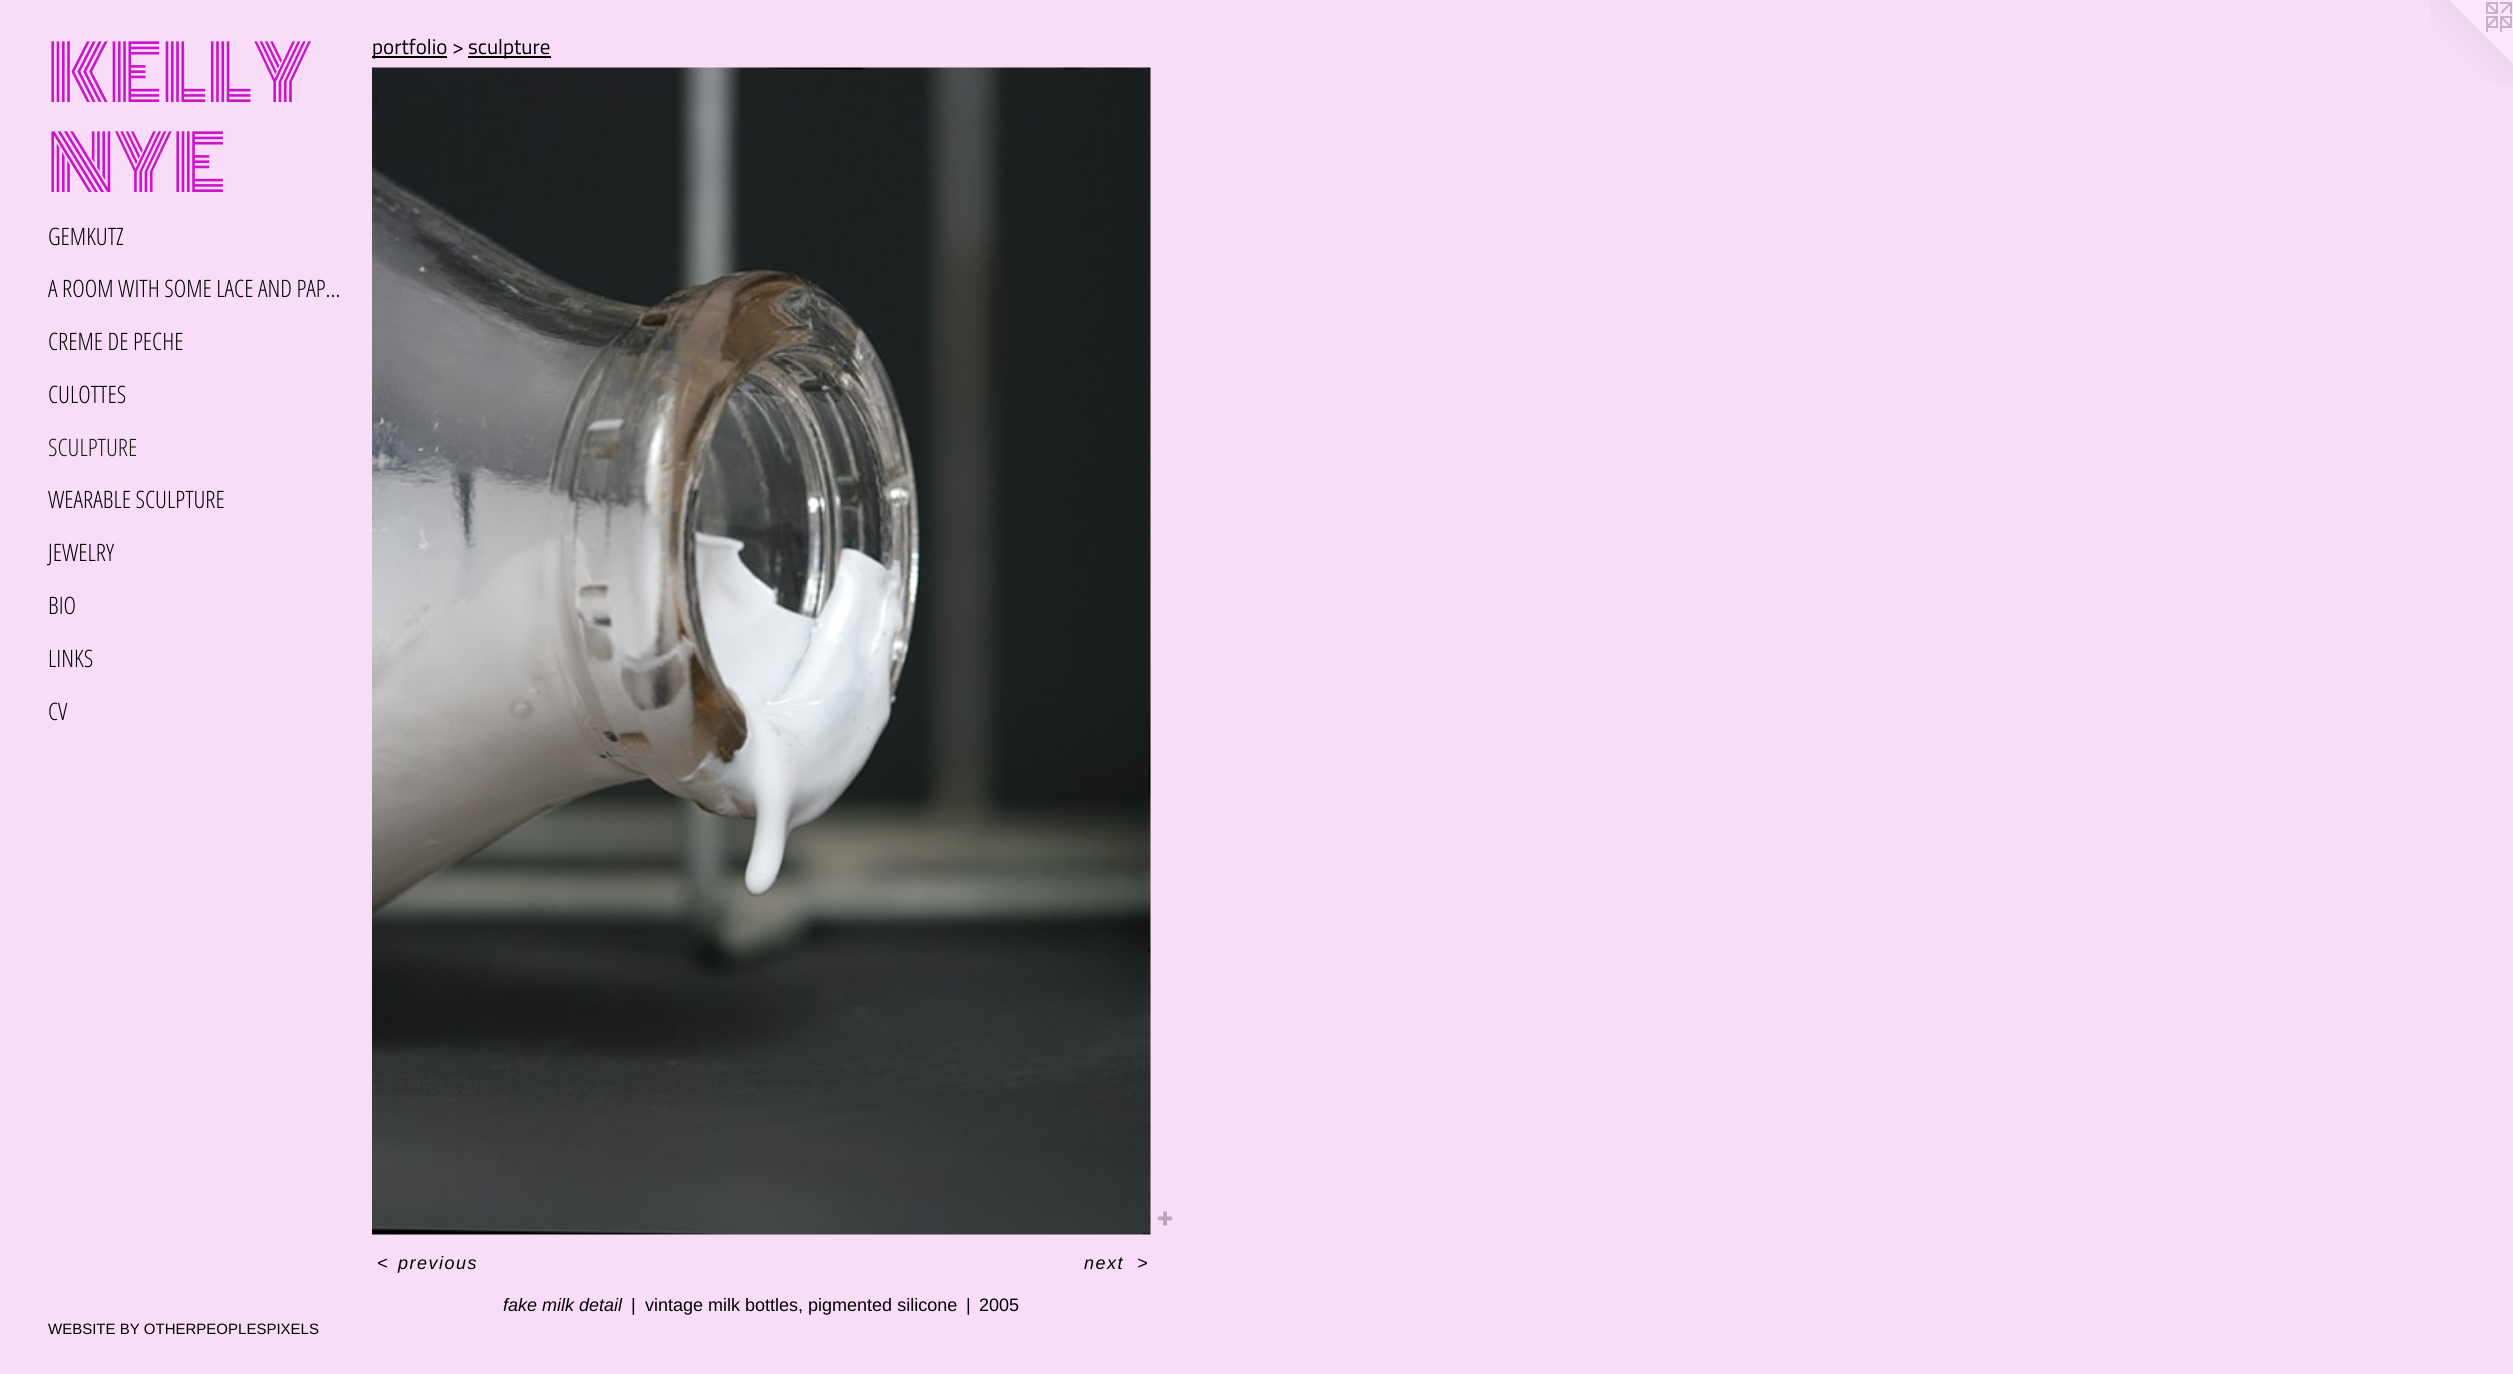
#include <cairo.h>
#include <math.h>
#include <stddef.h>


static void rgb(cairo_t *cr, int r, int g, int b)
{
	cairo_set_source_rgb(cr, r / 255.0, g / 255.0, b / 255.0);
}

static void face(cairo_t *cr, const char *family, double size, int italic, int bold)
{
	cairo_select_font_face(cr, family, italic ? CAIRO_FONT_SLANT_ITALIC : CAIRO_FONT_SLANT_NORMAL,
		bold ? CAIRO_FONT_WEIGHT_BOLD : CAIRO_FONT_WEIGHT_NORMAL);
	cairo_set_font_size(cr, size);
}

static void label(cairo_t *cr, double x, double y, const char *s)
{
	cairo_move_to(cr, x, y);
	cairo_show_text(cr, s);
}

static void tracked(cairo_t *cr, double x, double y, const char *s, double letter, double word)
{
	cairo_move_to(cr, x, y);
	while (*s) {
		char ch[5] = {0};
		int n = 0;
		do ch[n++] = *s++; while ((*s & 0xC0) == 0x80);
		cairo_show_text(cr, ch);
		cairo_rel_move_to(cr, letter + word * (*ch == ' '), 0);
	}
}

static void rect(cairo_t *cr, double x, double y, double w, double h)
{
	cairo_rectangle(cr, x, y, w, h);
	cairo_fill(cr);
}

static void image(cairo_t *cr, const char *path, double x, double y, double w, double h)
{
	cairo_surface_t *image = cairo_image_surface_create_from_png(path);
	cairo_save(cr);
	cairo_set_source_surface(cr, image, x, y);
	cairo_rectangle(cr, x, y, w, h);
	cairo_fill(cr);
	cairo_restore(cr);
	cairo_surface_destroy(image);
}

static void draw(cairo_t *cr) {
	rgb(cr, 249, 221, 248);
	cairo_paint(cr);
	face(cr, "Monoton", 75, 0, 0);
	rgb(cr, 203, 21, 201);
	label(cr, 48, 102, "KELLY");
	label(cr, 48, 192, "NYE");
	face(cr, "Open Sans Condensed Light", 24, 0, 0);
	rgb(cr, 0, 0, 0);
	label(cr, 48, 245, "GEMKUTZ");
	label(cr, 48, 297, "A ROOM WITH SOME LACE AND PAP…");
	label(cr, 48, 350, "CREME DE PECHE");
	label(cr, 48, 403, "CULOTTES");
	rgb(cr, 26, 26, 26);
	label(cr, 48, 456, "SCULPTURE");
	rgb(cr, 0, 0, 0);
	label(cr, 48, 508, "WEARABLE SCULPTURE");
	label(cr, 48, 561, "JEWELRY");
	label(cr, 48, 614, "BIO");
	label(cr, 48, 667, "LINKS");
	label(cr, 48, 720, "CV");
	face(cr, "Liberation Sans", 15, 0, 0);
	label(cr, 48, 1334, "WEBSITE BY OTHERPEOPLESPIXELS");
	rect(cr, 372, 56, 75, 2);
	face(cr, "Titillium Web", 21, 0, 0);
	label(cr, 372, 54, "portfolio >");
	rect(cr, 468, 56, 83, 2);
	label(cr, 468, 54, "sculpture");
	image(cr, "image0.png", 372, 67, 779, 1168);
	image(cr, "image1.png", 1158, 1211, 15, 15);
	face(cr, "Liberation Sans", 18, 1, 0);
	tracked(cr, 377, 1269, "<", 1.5, 0);
	tracked(cr, 398, 1269, "previous", 1.5, 0);
	tracked(cr, 1084, 1269, "next", 1.5, 0);
	tracked(cr, 1137, 1269, ">", 1.5, 0);
	label(cr, 503, 1311, "fake milk detail");
	face(cr, "Liberation Sans", 18, 0, 0);
	label(cr, 631, 1311, "|");
	label(cr, 645, 1311, "vintage milk bottles, pigmented silicone");
	label(cr, 966, 1311, "|");
	label(cr, 979, 1311, "2005");
	image(cr, "image2.png", 2430, 0, 83, 83);
}

int main(void) {
	cairo_surface_t *surface = cairo_image_surface_create(CAIRO_FORMAT_RGB24, 2513, 1374);
	cairo_t *cr = cairo_create(surface);
	cairo_font_options_t *options = cairo_font_options_create();
	cairo_font_options_set_hint_metrics(options, CAIRO_HINT_METRICS_OFF);
	cairo_font_options_set_hint_style(options, CAIRO_HINT_STYLE_NONE);
	cairo_set_font_options(cr, options);
	cairo_set_miter_limit(cr, 4);
	draw(cr);
	cairo_surface_write_to_png(surface, "render.png");
	cairo_font_options_destroy(options);
	cairo_destroy(cr);
	cairo_surface_destroy(surface);
	return 0;
}
